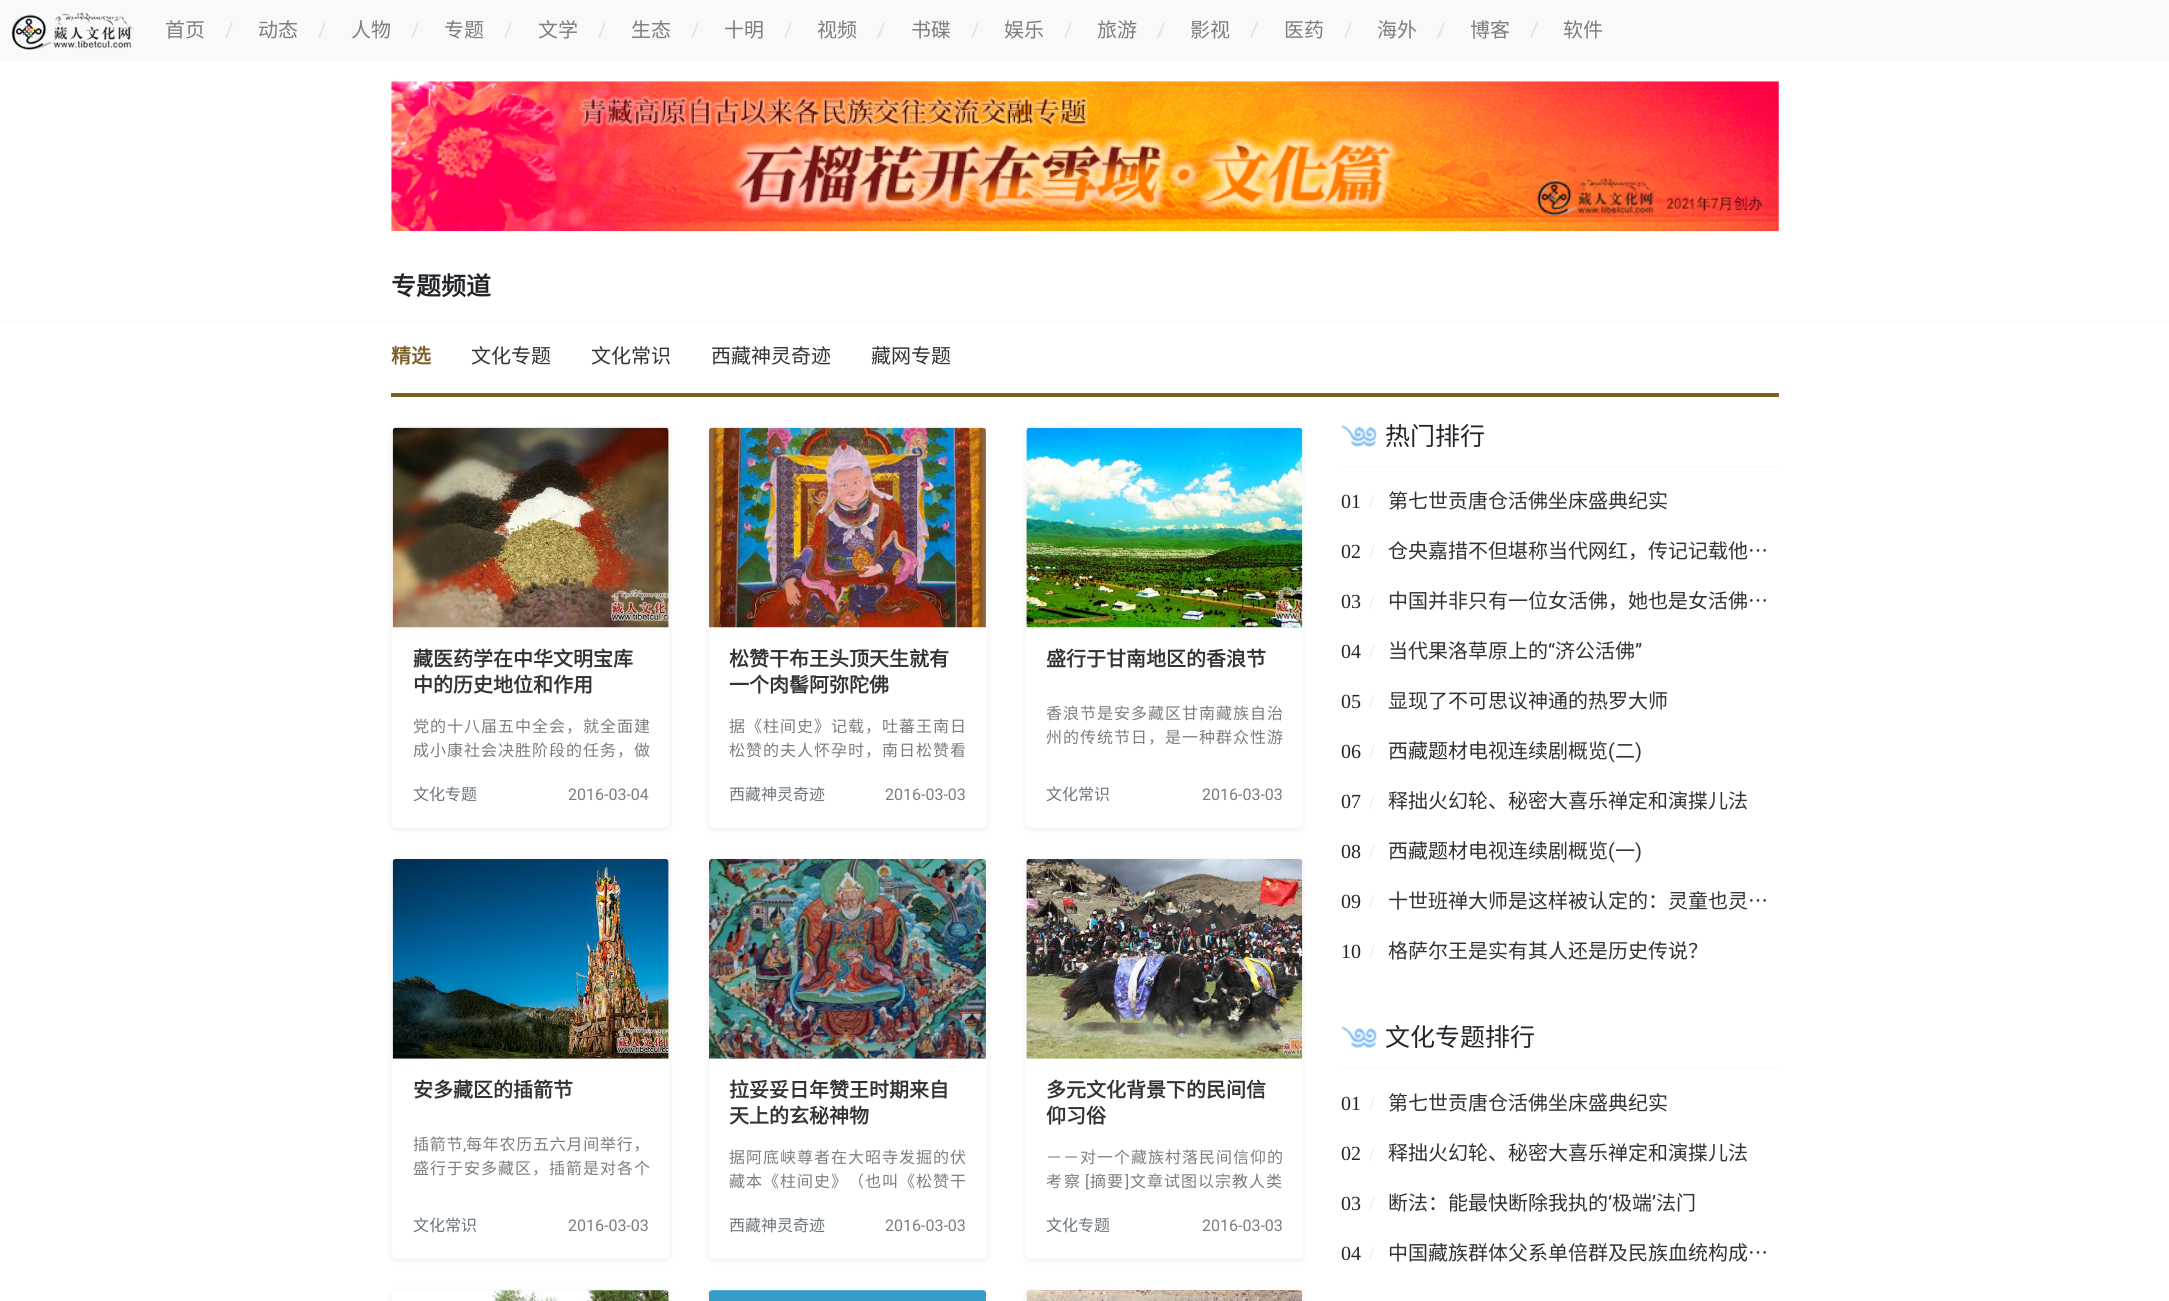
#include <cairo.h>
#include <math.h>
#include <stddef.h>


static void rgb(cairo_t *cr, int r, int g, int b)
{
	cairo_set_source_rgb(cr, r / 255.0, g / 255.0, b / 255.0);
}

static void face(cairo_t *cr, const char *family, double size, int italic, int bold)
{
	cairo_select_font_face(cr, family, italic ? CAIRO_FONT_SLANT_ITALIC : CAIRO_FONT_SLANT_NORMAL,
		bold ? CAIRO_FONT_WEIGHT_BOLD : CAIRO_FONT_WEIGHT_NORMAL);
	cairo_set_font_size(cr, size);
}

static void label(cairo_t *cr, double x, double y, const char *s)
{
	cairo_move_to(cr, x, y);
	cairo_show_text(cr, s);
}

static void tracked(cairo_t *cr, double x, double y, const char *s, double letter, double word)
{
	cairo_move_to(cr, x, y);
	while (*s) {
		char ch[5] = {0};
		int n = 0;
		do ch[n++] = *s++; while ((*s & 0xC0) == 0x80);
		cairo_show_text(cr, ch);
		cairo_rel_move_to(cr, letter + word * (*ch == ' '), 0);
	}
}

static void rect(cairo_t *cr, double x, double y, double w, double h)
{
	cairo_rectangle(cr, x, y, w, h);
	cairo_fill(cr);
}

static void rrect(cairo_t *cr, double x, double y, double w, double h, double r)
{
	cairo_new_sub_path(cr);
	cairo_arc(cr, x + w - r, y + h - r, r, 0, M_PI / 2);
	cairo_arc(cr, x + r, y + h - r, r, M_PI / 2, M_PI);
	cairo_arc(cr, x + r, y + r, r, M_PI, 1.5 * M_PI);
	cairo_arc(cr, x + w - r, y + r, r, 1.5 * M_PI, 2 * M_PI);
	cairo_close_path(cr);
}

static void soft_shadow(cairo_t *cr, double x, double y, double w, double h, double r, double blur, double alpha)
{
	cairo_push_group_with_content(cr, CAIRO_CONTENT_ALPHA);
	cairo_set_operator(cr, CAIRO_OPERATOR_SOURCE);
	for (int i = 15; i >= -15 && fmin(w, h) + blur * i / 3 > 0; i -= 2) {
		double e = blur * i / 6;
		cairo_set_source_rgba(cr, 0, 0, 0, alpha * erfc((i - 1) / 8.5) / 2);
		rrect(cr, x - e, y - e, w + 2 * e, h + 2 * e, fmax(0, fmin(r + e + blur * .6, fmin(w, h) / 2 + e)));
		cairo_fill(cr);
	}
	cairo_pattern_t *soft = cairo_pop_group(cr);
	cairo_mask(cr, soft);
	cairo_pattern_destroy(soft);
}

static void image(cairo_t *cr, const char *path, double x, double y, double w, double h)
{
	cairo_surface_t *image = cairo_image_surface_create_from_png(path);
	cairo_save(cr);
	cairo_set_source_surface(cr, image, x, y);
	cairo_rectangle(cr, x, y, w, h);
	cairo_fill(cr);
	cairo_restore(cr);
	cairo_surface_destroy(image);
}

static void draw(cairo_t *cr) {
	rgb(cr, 255, 255, 255);
	cairo_paint(cr);
	rgb(cr, 248, 249, 250);
	rect(cr, 0, 0, 2169, 61);
	image(cr, "image0.png", 11, 12, 123, 38);
	face(cr, "Noto Sans CJK SC", 20, 0, 0);
	rgb(cr, 124, 125, 125);
	label(cr, 165, 37, "首页");
	face(cr, "Roboto", 20, 0, 0);
	rgb(cr, 223, 224, 225);
	label(cr, 225, 37, "/");
	face(cr, "Noto Sans CJK SC", 20, 0, 0);
	rgb(cr, 124, 125, 125);
	label(cr, 258, 37, "动态");
	face(cr, "Roboto", 20, 0, 0);
	rgb(cr, 223, 224, 225);
	label(cr, 318, 37, "/");
	face(cr, "Noto Sans CJK SC", 20, 0, 0);
	rgb(cr, 124, 125, 125);
	label(cr, 351, 37, "人物");
	face(cr, "Roboto", 20, 0, 0);
	rgb(cr, 223, 224, 225);
	label(cr, 411, 37, "/");
	face(cr, "Noto Sans CJK SC", 20, 0, 0);
	rgb(cr, 124, 125, 125);
	label(cr, 444, 37, "专题");
	face(cr, "Roboto", 20, 0, 0);
	rgb(cr, 223, 224, 225);
	label(cr, 504, 37, "/");
	face(cr, "Noto Sans CJK SC", 20, 0, 0);
	rgb(cr, 124, 125, 125);
	label(cr, 538, 37, "文学");
	face(cr, "Roboto", 20, 0, 0);
	rgb(cr, 223, 224, 225);
	label(cr, 598, 37, "/");
	face(cr, "Noto Sans CJK SC", 20, 0, 0);
	rgb(cr, 124, 125, 125);
	label(cr, 631, 37, "生态");
	face(cr, "Roboto", 20, 0, 0);
	rgb(cr, 223, 224, 225);
	label(cr, 691, 37, "/");
	face(cr, "Noto Sans CJK SC", 20, 0, 0);
	rgb(cr, 124, 125, 125);
	label(cr, 724, 37, "十明");
	face(cr, "Roboto", 20, 0, 0);
	rgb(cr, 223, 224, 225);
	label(cr, 784, 37, "/");
	face(cr, "Noto Sans CJK SC", 20, 0, 0);
	rgb(cr, 124, 125, 125);
	label(cr, 817, 37, "视频");
	face(cr, "Roboto", 20, 0, 0);
	rgb(cr, 223, 224, 225);
	label(cr, 877, 37, "/");
	face(cr, "Noto Sans CJK SC", 20, 0, 0);
	rgb(cr, 124, 125, 125);
	label(cr, 911, 37, "书碟");
	face(cr, "Roboto", 20, 0, 0);
	rgb(cr, 223, 224, 225);
	label(cr, 971, 37, "/");
	face(cr, "Noto Sans CJK SC", 20, 0, 0);
	rgb(cr, 124, 125, 125);
	label(cr, 1004, 37, "娱乐");
	face(cr, "Roboto", 20, 0, 0);
	rgb(cr, 223, 224, 225);
	label(cr, 1064, 37, "/");
	face(cr, "Noto Sans CJK SC", 20, 0, 0);
	rgb(cr, 124, 125, 125);
	label(cr, 1097, 37, "旅游");
	face(cr, "Roboto", 20, 0, 0);
	rgb(cr, 223, 224, 225);
	label(cr, 1157, 37, "/");
	face(cr, "Noto Sans CJK SC", 20, 0, 0);
	rgb(cr, 124, 125, 125);
	label(cr, 1190, 37, "影视");
	face(cr, "Roboto", 20, 0, 0);
	rgb(cr, 223, 224, 225);
	label(cr, 1250, 37, "/");
	face(cr, "Noto Sans CJK SC", 20, 0, 0);
	rgb(cr, 124, 125, 125);
	label(cr, 1284, 37, "医药");
	face(cr, "Roboto", 20, 0, 0);
	rgb(cr, 223, 224, 225);
	label(cr, 1344, 37, "/");
	face(cr, "Noto Sans CJK SC", 20, 0, 0);
	rgb(cr, 124, 125, 125);
	label(cr, 1377, 37, "海外");
	face(cr, "Roboto", 20, 0, 0);
	rgb(cr, 223, 224, 225);
	label(cr, 1437, 37, "/");
	face(cr, "Noto Sans CJK SC", 20, 0, 0);
	rgb(cr, 124, 125, 125);
	label(cr, 1470, 37, "博客");
	face(cr, "Roboto", 20, 0, 0);
	rgb(cr, 223, 224, 225);
	label(cr, 1530, 37, "/");
	face(cr, "Noto Sans CJK SC", 20, 0, 0);
	rgb(cr, 124, 125, 125);
	label(cr, 1563, 37, "软件");
	image(cr, "image1.png", 391, 81, 1388, 151);
	rgb(cr, 248, 249, 250);
	rect(cr, 0, 321, 2169, 1);
	face(cr, "Noto Sans CJK SC", 25, 0, 1);
	rgb(cr, 33, 37, 41);
	label(cr, 391, 295, "专题频道");
	rgb(cr, 127, 93, 38);
	rect(cr, 391, 393, 1388, 4);
	face(cr, "Noto Sans CJK SC", 20, 0, 1);
	label(cr, 391, 363, "精选");
	face(cr, "Noto Sans CJK SC", 20, 0, 0);
	rgb(cr, 51, 51, 51);
	label(cr, 471, 363, "文化专题");
	label(cr, 591, 363, "文化常识");
	label(cr, 711, 363, "西藏神灵奇迹");
	label(cr, 871, 363, "藏网专题");
	rgb(cr, 0, 0, 0);
	soft_shadow(cr, 391, 429, 279, 401, 5, 2.5, 0.07);
	rgb(cr, 255, 255, 255);
	rrect(cr, 391.5, 426.5, 278, 401, 4.5);
	cairo_fill_preserve(cr);
	rgb(cr, 248, 249, 250);
	cairo_set_line_width(cr, 1);
	cairo_stroke(cr);
	image(cr, "image2.png", 392, 427, 277, 201);
	face(cr, "Noto Sans CJK SC", 20, 0, 1);
	rgb(cr, 51, 51, 51);
	label(cr, 413, 666, "藏医药学在中华文明宝库");
	label(cr, 413, 692, "中的历史地位和作用");
	face(cr, "Noto Sans CJK SC", 16, 0, 0);
	rgb(cr, 124, 125, 125);
	tracked(cr, 413, 732, "党的十八届五中全会，就全面建", 1, 0);
	tracked(cr, 413, 756, "成小康社会决胜阶段的任务，做", 1, 0);
	rgb(cr, 108, 117, 125);
	label(cr, 413, 800, "文化专题");
	face(cr, "Roboto", 16, 0, 0);
	rgb(cr, 124, 125, 125);
	label(cr, 568, 800, "2016-03-04");
	rgb(cr, 0, 0, 0);
	soft_shadow(cr, 708, 429, 280, 401, 5, 2.5, 0.07);
	rgb(cr, 255, 255, 255);
	rrect(cr, 708.5, 426.5, 279, 401, 4.5);
	cairo_fill_preserve(cr);
	rgb(cr, 248, 249, 250);
	cairo_stroke(cr);
	image(cr, "image3.png", 709, 427, 277, 201);
	face(cr, "Noto Sans CJK SC", 20, 0, 1);
	rgb(cr, 51, 51, 51);
	label(cr, 729, 666, "松赞干布王头顶天生就有");
	label(cr, 729, 692, "一个肉髻阿弥陀佛");
	face(cr, "Noto Sans CJK SC", 16, 0, 0);
	rgb(cr, 124, 125, 125);
	tracked(cr, 729, 732, "据《柱间史》记载，吐蕃王南日", 1, 0);
	tracked(cr, 729, 756, "松赞的夫人怀孕时，南日松赞看", 1, 0);
	rgb(cr, 108, 117, 125);
	label(cr, 729, 800, "西藏神灵奇迹");
	face(cr, "Roboto", 16, 0, 0);
	rgb(cr, 124, 125, 125);
	label(cr, 885, 800, "2016-03-03");
	rgb(cr, 0, 0, 0);
	soft_shadow(cr, 1025, 429, 279, 401, 5, 2.5, 0.07);
	rgb(cr, 255, 255, 255);
	rrect(cr, 1025.5, 426.5, 278, 401, 4.5);
	cairo_fill_preserve(cr);
	rgb(cr, 248, 249, 250);
	cairo_stroke(cr);
	image(cr, "image4.png", 1026, 427, 277, 201);
	face(cr, "Noto Sans CJK SC", 20, 0, 1);
	rgb(cr, 51, 51, 51);
	label(cr, 1046, 666, "盛行于甘南地区的香浪节");
	face(cr, "Noto Sans CJK SC", 16, 0, 0);
	rgb(cr, 124, 125, 125);
	tracked(cr, 1046, 719, "香浪节是安多藏区甘南藏族自治", 1, 0);
	tracked(cr, 1046, 743, "州的传统节日，是一种群众性游", 1, 0);
	rgb(cr, 108, 117, 125);
	label(cr, 1046, 800, "文化常识");
	face(cr, "Roboto", 16, 0, 0);
	rgb(cr, 124, 125, 125);
	label(cr, 1202, 800, "2016-03-03");
	rgb(cr, 0, 0, 0);
	soft_shadow(cr, 391, 860, 279, 401, 5, 2.5, 0.07);
	rgb(cr, 255, 255, 255);
	rrect(cr, 391.5, 858.5, 278, 400, 4.5);
	cairo_fill_preserve(cr);
	rgb(cr, 248, 249, 250);
	cairo_stroke(cr);
	image(cr, "image5.png", 392, 859, 277, 200);
	face(cr, "Noto Sans CJK SC", 20, 0, 1);
	rgb(cr, 51, 51, 51);
	label(cr, 413, 1097, "安多藏区的插箭节");
	face(cr, "Noto Sans CJK SC", 16, 0, 0);
	rgb(cr, 124, 125, 125);
	tracked(cr, 413, 1150, "插箭节", 0.75, 0);
	face(cr, "Roboto", 16, 0, 0);
	tracked(cr, 463, 1150, ",", 0.75, 0);
	face(cr, "Noto Sans CJK SC", 16, 0, 0);
	tracked(cr, 466, 1150, "每年农历五六月间举行，", 0.75, 0);
	tracked(cr, 413, 1174, "盛行于安多藏区，插箭是对各个", 1, 0);
	rgb(cr, 108, 117, 125);
	label(cr, 413, 1231, "文化常识");
	face(cr, "Roboto", 16, 0, 0);
	rgb(cr, 124, 125, 125);
	label(cr, 568, 1231, "2016-03-03");
	rgb(cr, 0, 0, 0);
	soft_shadow(cr, 708, 860, 280, 401, 5, 2.5, 0.07);
	rgb(cr, 255, 255, 255);
	rrect(cr, 708.5, 858.5, 279, 400, 4.5);
	cairo_fill_preserve(cr);
	rgb(cr, 248, 249, 250);
	cairo_stroke(cr);
	image(cr, "image6.png", 709, 859, 277, 200);
	face(cr, "Noto Sans CJK SC", 20, 0, 1);
	rgb(cr, 51, 51, 51);
	label(cr, 729, 1097, "拉妥妥日年赞王时期来自");
	label(cr, 729, 1123, "天上的玄秘神物");
	face(cr, "Noto Sans CJK SC", 16, 0, 0);
	rgb(cr, 124, 125, 125);
	tracked(cr, 729, 1163, "据阿底峡尊者在大昭寺发掘的伏", 1, 0);
	tracked(cr, 729, 1187, "藏本《柱间史》（也叫《松赞干", 1, 0);
	rgb(cr, 108, 117, 125);
	label(cr, 729, 1231, "西藏神灵奇迹");
	face(cr, "Roboto", 16, 0, 0);
	rgb(cr, 124, 125, 125);
	label(cr, 885, 1231, "2016-03-03");
	rgb(cr, 0, 0, 0);
	soft_shadow(cr, 1025, 860, 279, 401, 5, 2.5, 0.07);
	rgb(cr, 255, 255, 255);
	rrect(cr, 1025.5, 858.5, 278, 400, 4.5);
	cairo_fill_preserve(cr);
	rgb(cr, 248, 249, 250);
	cairo_stroke(cr);
	image(cr, "image7.png", 1026, 859, 277, 200);
	face(cr, "Noto Sans CJK SC", 20, 0, 1);
	rgb(cr, 51, 51, 51);
	label(cr, 1046, 1097, "多元文化背景下的民间信");
	label(cr, 1046, 1123, "仰习俗");
	face(cr, "Noto Sans CJK SC", 16, 0, 0);
	rgb(cr, 124, 125, 125);
	tracked(cr, 1046, 1163, "－－对一个藏族村落民间信仰的", 1, 0);
	tracked(cr, 1046, 1187, "考察", 2, 0);
	face(cr, "Roboto", 16, 0, 0);
	tracked(cr, 1085, 1187, "[", 1, 0);
	face(cr, "Noto Sans CJK SC", 16, 0, 0);
	tracked(cr, 1090, 1187, "摘要", 1, 0);
	face(cr, "Roboto", 16, 0, 0);
	tracked(cr, 1125, 1187, "]", 1, 0);
	face(cr, "Noto Sans CJK SC", 16, 0, 0);
	tracked(cr, 1130, 1187, "文章试图以宗教人类", 1, 0);
	rgb(cr, 108, 117, 125);
	label(cr, 1046, 1231, "文化专题");
	face(cr, "Roboto", 16, 0, 0);
	rgb(cr, 124, 125, 125);
	label(cr, 1202, 1231, "2016-03-03");
	rgb(cr, 0, 0, 0);
	soft_shadow(cr, 391, 1291, 279, 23, 5, 2.5, 0.07);
	rgb(cr, 255, 255, 255);
	rrect(cr, 391.5, 1289.5, 278, 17, 4.5);
	cairo_fill_preserve(cr);
	rgb(cr, 248, 249, 250);
	cairo_stroke(cr);
	image(cr, "image8.png", 492, 1290, 177, 11);
	rgb(cr, 0, 0, 0);
	soft_shadow(cr, 708, 1291, 280, 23, 5, 2.5, 0.07);
	rgb(cr, 255, 255, 255);
	rrect(cr, 708.5, 1289.5, 279, 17, 4.5);
	cairo_fill_preserve(cr);
	rgb(cr, 248, 249, 250);
	cairo_stroke(cr);
	image(cr, "image9.png", 709, 1290, 277, 11);
	rgb(cr, 0, 0, 0);
	soft_shadow(cr, 1025, 1291, 279, 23, 5, 2.5, 0.07);
	rgb(cr, 255, 255, 255);
	rrect(cr, 1025.5, 1289.5, 278, 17, 4.5);
	cairo_fill_preserve(cr);
	rgb(cr, 248, 249, 250);
	cairo_stroke(cr);
	image(cr, "image10.png", 1026, 1290, 277, 11);
	rect(cr, 1341, 466, 438, 1);
	image(cr, "image11.png", 1341, 425, 36, 22);
	face(cr, "Noto Sans CJK SC", 25, 0, 0);
	rgb(cr, 33, 37, 41);
	label(cr, 1385, 445, "热门排行");
	face(cr, "Liberation Serif", 20, 0, 0);
	label(cr, 1341, 508, "01");
	rgb(cr, 230, 230, 230);
	label(cr, 1369, 508, "/");
	face(cr, "Noto Sans CJK SC", 20, 0, 0);
	rgb(cr, 51, 51, 51);
	label(cr, 1388, 508, "第七世贡唐仓活佛坐床盛典纪实");
	face(cr, "Liberation Serif", 20, 0, 0);
	rgb(cr, 33, 37, 41);
	label(cr, 1341, 558, "02");
	rgb(cr, 230, 230, 230);
	label(cr, 1369, 558, "/");
	face(cr, "Noto Sans CJK SC", 20, 0, 0);
	rgb(cr, 51, 51, 51);
	label(cr, 1388, 558, "仓央嘉措不但堪称当代网红，传记记载他…");
	face(cr, "Liberation Serif", 20, 0, 0);
	rgb(cr, 33, 37, 41);
	label(cr, 1341, 608, "03");
	rgb(cr, 230, 230, 230);
	label(cr, 1369, 608, "/");
	face(cr, "Noto Sans CJK SC", 20, 0, 0);
	rgb(cr, 51, 51, 51);
	label(cr, 1388, 608, "中国并非只有一位女活佛，她也是女活佛…");
	face(cr, "Liberation Serif", 20, 0, 0);
	rgb(cr, 33, 37, 41);
	label(cr, 1341, 658, "04");
	rgb(cr, 230, 230, 230);
	label(cr, 1369, 658, "/");
	face(cr, "Noto Sans CJK SC", 20, 0, 0);
	rgb(cr, 51, 51, 51);
	label(cr, 1388, 658, "当代果洛草原上的");
	face(cr, "Roboto", 20, 0, 0);
	label(cr, 1548, 658, "“");
	face(cr, "Noto Sans CJK SC", 20, 0, 0);
	label(cr, 1555, 658, "济公活佛");
	face(cr, "Roboto", 20, 0, 0);
	label(cr, 1635, 658, "”");
	face(cr, "Liberation Serif", 20, 0, 0);
	rgb(cr, 33, 37, 41);
	label(cr, 1341, 708, "05");
	rgb(cr, 230, 230, 230);
	label(cr, 1369, 708, "/");
	face(cr, "Noto Sans CJK SC", 20, 0, 0);
	rgb(cr, 51, 51, 51);
	label(cr, 1388, 708, "显现了不可思议神通的热罗大师");
	face(cr, "Liberation Serif", 20, 0, 0);
	rgb(cr, 33, 37, 41);
	label(cr, 1341, 758, "06");
	rgb(cr, 230, 230, 230);
	label(cr, 1369, 758, "/");
	face(cr, "Noto Sans CJK SC", 20, 0, 0);
	rgb(cr, 51, 51, 51);
	label(cr, 1388, 758, "西藏题材电视连续剧概览");
	face(cr, "Roboto", 20, 0, 0);
	label(cr, 1608, 758, "(");
	face(cr, "Noto Sans CJK SC", 20, 0, 0);
	label(cr, 1615, 758, "二");
	face(cr, "Roboto", 20, 0, 0);
	label(cr, 1635, 758, ")");
	face(cr, "Liberation Serif", 20, 0, 0);
	rgb(cr, 33, 37, 41);
	label(cr, 1341, 808, "07");
	rgb(cr, 230, 230, 230);
	label(cr, 1369, 808, "/");
	face(cr, "Noto Sans CJK SC", 20, 0, 0);
	rgb(cr, 51, 51, 51);
	label(cr, 1388, 808, "释拙火幻轮、秘密大喜乐禅定和演揲儿法");
	face(cr, "Liberation Serif", 20, 0, 0);
	rgb(cr, 33, 37, 41);
	label(cr, 1341, 858, "08");
	rgb(cr, 230, 230, 230);
	label(cr, 1369, 858, "/");
	face(cr, "Noto Sans CJK SC", 20, 0, 0);
	rgb(cr, 51, 51, 51);
	label(cr, 1388, 858, "西藏题材电视连续剧概览");
	face(cr, "Roboto", 20, 0, 0);
	label(cr, 1608, 858, "(");
	face(cr, "Noto Sans CJK SC", 20, 0, 0);
	label(cr, 1615, 858, "一");
	face(cr, "Roboto", 20, 0, 0);
	label(cr, 1635, 858, ")");
	face(cr, "Liberation Serif", 20, 0, 0);
	rgb(cr, 33, 37, 41);
	label(cr, 1341, 908, "09");
	rgb(cr, 230, 230, 230);
	label(cr, 1369, 908, "/");
	face(cr, "Noto Sans CJK SC", 20, 0, 0);
	rgb(cr, 51, 51, 51);
	label(cr, 1388, 908, "十世班禅大师是这样被认定的：灵童也灵…");
	face(cr, "Liberation Serif", 20, 0, 0);
	rgb(cr, 33, 37, 41);
	label(cr, 1341, 958, "10");
	rgb(cr, 230, 230, 230);
	label(cr, 1369, 958, "/");
	face(cr, "Noto Sans CJK SC", 20, 0, 0);
	rgb(cr, 51, 51, 51);
	label(cr, 1388, 958, "格萨尔王是实有其人还是历史传说？");
	rgb(cr, 248, 249, 250);
	rect(cr, 1341, 1068, 438, 1);
	image(cr, "image12.png", 1341, 1026, 36, 22);
	face(cr, "Noto Sans CJK SC", 25, 0, 0);
	rgb(cr, 33, 37, 41);
	label(cr, 1385, 1046, "文化专题排行");
	face(cr, "Liberation Serif", 20, 0, 0);
	label(cr, 1341, 1110, "01");
	rgb(cr, 230, 230, 230);
	label(cr, 1369, 1110, "/");
	face(cr, "Noto Sans CJK SC", 20, 0, 0);
	rgb(cr, 51, 51, 51);
	label(cr, 1388, 1110, "第七世贡唐仓活佛坐床盛典纪实");
	face(cr, "Liberation Serif", 20, 0, 0);
	rgb(cr, 33, 37, 41);
	label(cr, 1341, 1160, "02");
	rgb(cr, 230, 230, 230);
	label(cr, 1369, 1160, "/");
	face(cr, "Noto Sans CJK SC", 20, 0, 0);
	rgb(cr, 51, 51, 51);
	label(cr, 1388, 1160, "释拙火幻轮、秘密大喜乐禅定和演揲儿法");
	face(cr, "Liberation Serif", 20, 0, 0);
	rgb(cr, 33, 37, 41);
	label(cr, 1341, 1210, "03");
	rgb(cr, 230, 230, 230);
	label(cr, 1369, 1210, "/");
	face(cr, "Noto Sans CJK SC", 20, 0, 0);
	rgb(cr, 51, 51, 51);
	label(cr, 1388, 1210, "断法：能最快断除我执的");
	face(cr, "Roboto", 20, 0, 0);
	label(cr, 1608, 1210, "‘");
	face(cr, "Noto Sans CJK SC", 20, 0, 0);
	label(cr, 1612, 1210, "极端");
	face(cr, "Roboto", 20, 0, 0);
	label(cr, 1652, 1210, "’");
	face(cr, "Noto Sans CJK SC", 20, 0, 0);
	label(cr, 1656, 1210, "法门");
	face(cr, "Liberation Serif", 20, 0, 0);
	rgb(cr, 33, 37, 41);
	label(cr, 1341, 1260, "04");
	rgb(cr, 230, 230, 230);
	label(cr, 1369, 1260, "/");
	face(cr, "Noto Sans CJK SC", 20, 0, 0);
	rgb(cr, 51, 51, 51);
	label(cr, 1388, 1260, "中国藏族群体父系单倍群及民族血统构成…");
}

int main(void) {
	cairo_surface_t *surface = cairo_image_surface_create(CAIRO_FORMAT_RGB24, 2169, 1301);
	cairo_t *cr = cairo_create(surface);
	cairo_font_options_t *options = cairo_font_options_create();
	cairo_font_options_set_hint_metrics(options, CAIRO_HINT_METRICS_OFF);
	cairo_font_options_set_hint_style(options, CAIRO_HINT_STYLE_NONE);
	cairo_set_font_options(cr, options);
	cairo_set_miter_limit(cr, 4);
	draw(cr);
	cairo_surface_write_to_png(surface, "render.png");
	cairo_font_options_destroy(options);
	cairo_destroy(cr);
	cairo_surface_destroy(surface);
	return 0;
}
